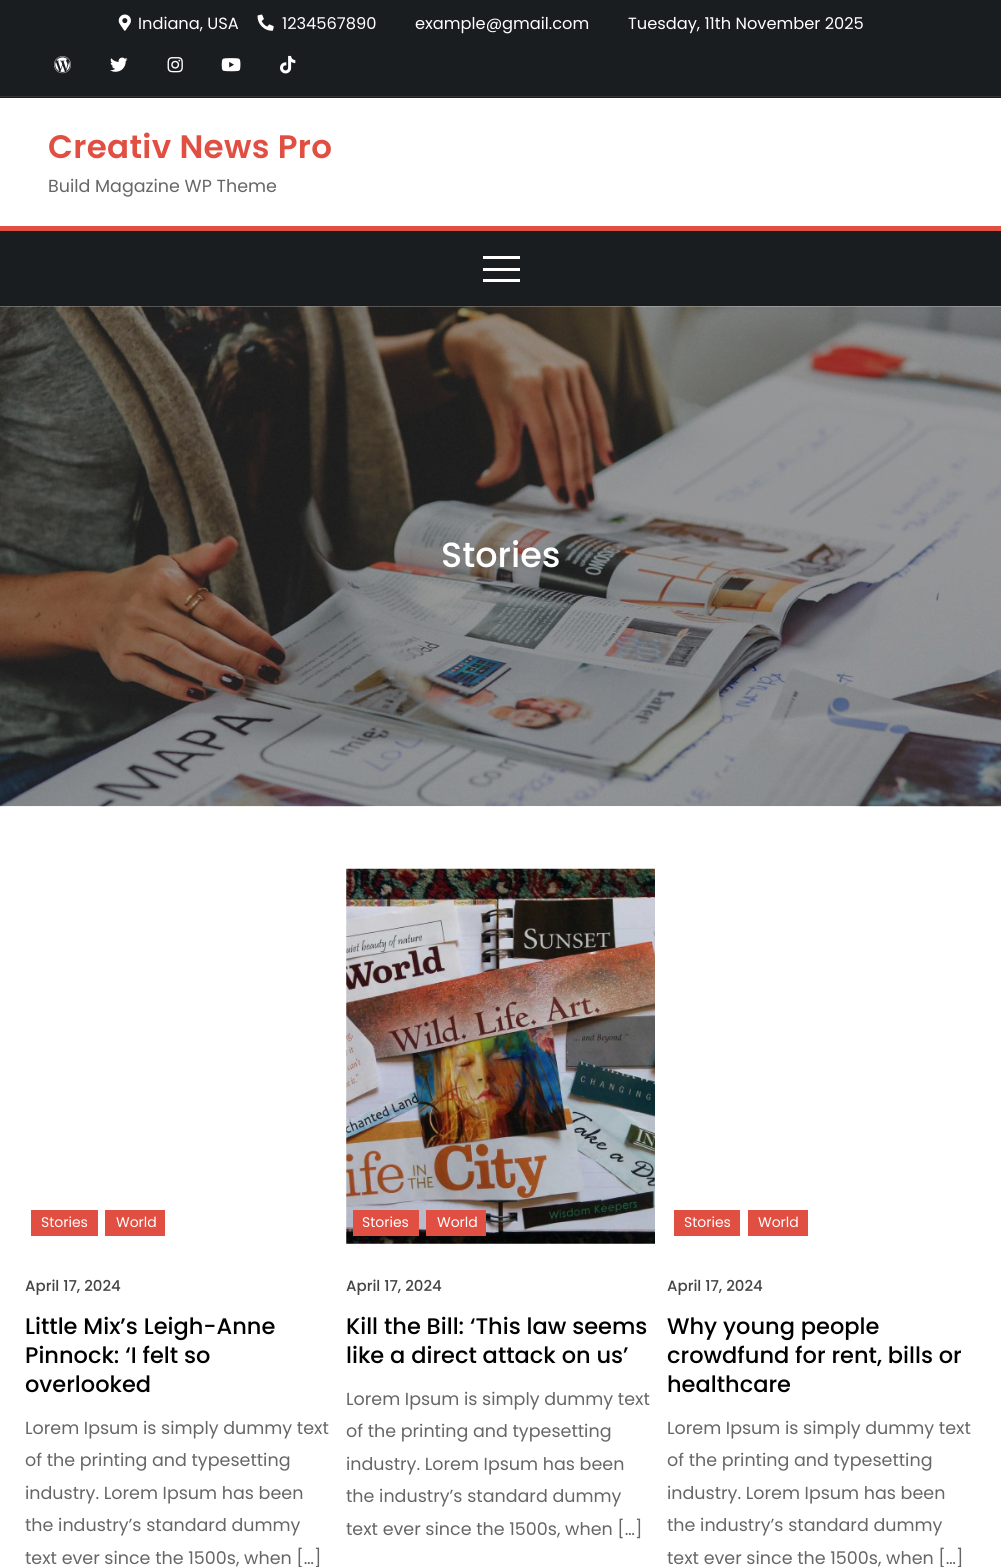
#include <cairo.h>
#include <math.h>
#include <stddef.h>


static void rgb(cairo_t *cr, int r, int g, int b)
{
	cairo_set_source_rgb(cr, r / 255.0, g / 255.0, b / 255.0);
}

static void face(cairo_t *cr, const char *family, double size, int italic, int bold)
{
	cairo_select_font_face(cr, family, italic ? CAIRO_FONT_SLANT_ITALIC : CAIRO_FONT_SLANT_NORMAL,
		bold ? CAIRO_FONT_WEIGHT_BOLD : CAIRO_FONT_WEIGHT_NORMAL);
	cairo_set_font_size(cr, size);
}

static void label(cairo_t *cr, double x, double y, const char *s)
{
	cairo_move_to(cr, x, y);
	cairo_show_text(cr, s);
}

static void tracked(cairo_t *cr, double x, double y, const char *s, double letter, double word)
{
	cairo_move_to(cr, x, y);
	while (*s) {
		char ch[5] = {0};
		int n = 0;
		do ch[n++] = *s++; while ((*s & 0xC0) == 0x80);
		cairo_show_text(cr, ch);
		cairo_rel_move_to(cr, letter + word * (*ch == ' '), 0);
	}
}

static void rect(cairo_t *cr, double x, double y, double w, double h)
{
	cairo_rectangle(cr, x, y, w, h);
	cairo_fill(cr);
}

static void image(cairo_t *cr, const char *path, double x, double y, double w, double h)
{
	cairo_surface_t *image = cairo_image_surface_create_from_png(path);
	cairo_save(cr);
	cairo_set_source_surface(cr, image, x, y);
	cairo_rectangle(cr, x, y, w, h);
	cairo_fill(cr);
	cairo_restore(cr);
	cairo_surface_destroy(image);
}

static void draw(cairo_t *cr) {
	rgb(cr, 255, 255, 255);
	cairo_paint(cr);
	rgb(cr, 26, 29, 32);
	rect(cr, 0, 0, 1001, 98);
	rgb(cr, 49, 52, 54);
	rect(cr, 0, 96, 1001, 1);
	image(cr, "image0.png", 118, 14, 13, 17);
	face(cr, "Poppins", 16.25, 0, 0);
	rgb(cr, 255, 255, 255);
	label(cr, 138, 29, "Indiana, USA");
	image(cr, "image1.png", 257, 14, 17, 17);
	label(cr, 282, 29, "1234567890");
	label(cr, 415, 29, "example@gmail.com");
	label(cr, 628, 29, "Tuesday, 11th November 2025");
	image(cr, "image2.png", 54, 56, 17, 18);
	image(cr, "image3.png", 110, 57, 18, 15);
	image(cr, "image4.png", 167, 57, 16, 16);
	image(cr, "image5.png", 221, 58, 20, 14);
	image(cr, "image6.png", 280, 55, 16, 19);
	face(cr, "Poppins SemiBold", 32.5, 0, 0);
	rgb(cr, 225, 78, 66);
	tracked(cr, 48, 158, "Creativ News Pro", 0.3, 0);
	face(cr, "Poppins", 17.5, 0, 0);
	rgb(cr, 102, 102, 102);
	label(cr, 48, 192, "Build Magazine WP Theme");
	rgb(cr, 26, 29, 32);
	rect(cr, 0, 231, 1001, 75);
	rgb(cr, 225, 78, 66);
	rect(cr, 0, 226, 1001, 5);
	rgb(cr, 255, 255, 255);
	rect(cr, 483, 256, 37, 3);
	rect(cr, 483, 268, 37, 3);
	rect(cr, 483, 279, 37, 3);
	image(cr, "image7.png", 0, 306, 1001, 501);
	face(cr, "Poppins Medium", 35, 0, 0);
	label(cr, 441, 567, "Stories");
	rgb(cr, 225, 78, 66);
	rect(cr, 31, 1210, 67, 26);
	face(cr, "Poppins", 14, 0, 0);
	rgb(cr, 255, 255, 255);
	label(cr, 41, 1227, "Stories");
	rgb(cr, 225, 78, 66);
	rect(cr, 105, 1210, 60, 26);
	rgb(cr, 255, 255, 255);
	label(cr, 116, 1227, "World");
	face(cr, "Poppins Medium", 15, 0, 0);
	rgb(cr, 68, 68, 68);
	label(cr, 25, 1291, "April 17, 2024");
	face(cr, "Poppins Medium", 22.5, 0, 0);
	rgb(cr, 0, 0, 0);
	label(cr, 25, 1334, "Little Mix’s Leigh-Anne");
	label(cr, 25, 1363, "Pinnock: ‘I felt so");
	label(cr, 25, 1392, "overlooked");
	face(cr, "Poppins", 17.5, 0, 0);
	rgb(cr, 102, 102, 102);
	label(cr, 25, 1434, "Lorem Ipsum is simply dummy text");
	label(cr, 25, 1466, "of the printing and typesetting");
	label(cr, 25, 1499, "industry. Lorem Ipsum has been");
	label(cr, 25, 1531, "the industry’s standard dummy");
	label(cr, 25, 1564, "text ever since the 1500s, when […]");
	image(cr, "image8.png", 346, 868, 309, 376);
	rgb(cr, 225, 78, 66);
	rect(cr, 353, 1210, 66, 26);
	face(cr, "Poppins", 14, 0, 0);
	rgb(cr, 255, 255, 255);
	label(cr, 362, 1227, "Stories");
	rgb(cr, 225, 78, 66);
	rect(cr, 426, 1210, 60, 26);
	rgb(cr, 255, 255, 255);
	label(cr, 437, 1227, "World");
	face(cr, "Poppins Medium", 15, 0, 0);
	rgb(cr, 68, 68, 68);
	label(cr, 346, 1291, "April 17, 2024");
	face(cr, "Poppins Medium", 22.5, 0, 0);
	rgb(cr, 0, 0, 0);
	label(cr, 346, 1334, "Kill the Bill: ‘This law seems");
	label(cr, 346, 1363, "like a direct attack on us’");
	face(cr, "Poppins", 17.5, 0, 0);
	rgb(cr, 102, 102, 102);
	label(cr, 346, 1405, "Lorem Ipsum is simply dummy text");
	label(cr, 346, 1437, "of the printing and typesetting");
	label(cr, 346, 1470, "industry. Lorem Ipsum has been");
	label(cr, 346, 1502, "the industry’s standard dummy");
	label(cr, 346, 1535, "text ever since the 1500s, when […]");
	rgb(cr, 225, 78, 66);
	rect(cr, 674, 1210, 66, 26);
	face(cr, "Poppins", 14, 0, 0);
	rgb(cr, 255, 255, 255);
	label(cr, 684, 1227, "Stories");
	rgb(cr, 225, 78, 66);
	rect(cr, 748, 1210, 60, 26);
	rgb(cr, 255, 255, 255);
	label(cr, 758, 1227, "World");
	face(cr, "Poppins Medium", 15, 0, 0);
	rgb(cr, 68, 68, 68);
	label(cr, 667, 1291, "April 17, 2024");
	face(cr, "Poppins Medium", 22.5, 0, 0);
	rgb(cr, 0, 0, 0);
	label(cr, 667, 1334, "Why young people");
	label(cr, 667, 1363, "crowdfund for rent, bills or");
	label(cr, 667, 1392, "healthcare");
	face(cr, "Poppins", 17.5, 0, 0);
	rgb(cr, 102, 102, 102);
	label(cr, 667, 1434, "Lorem Ipsum is simply dummy text");
	label(cr, 667, 1466, "of the printing and typesetting");
	label(cr, 667, 1499, "industry. Lorem Ipsum has been");
	label(cr, 667, 1531, "the industry’s standard dummy");
	label(cr, 667, 1564, "text ever since the 1500s, when […]");
}

int main(void) {
	cairo_surface_t *surface = cairo_image_surface_create(CAIRO_FORMAT_RGB24, 1001, 1567);
	cairo_t *cr = cairo_create(surface);
	cairo_font_options_t *options = cairo_font_options_create();
	cairo_font_options_set_hint_metrics(options, CAIRO_HINT_METRICS_OFF);
	cairo_font_options_set_hint_style(options, CAIRO_HINT_STYLE_NONE);
	cairo_set_font_options(cr, options);
	cairo_set_miter_limit(cr, 4);
	draw(cr);
	cairo_surface_write_to_png(surface, "render.png");
	cairo_font_options_destroy(options);
	cairo_destroy(cr);
	cairo_surface_destroy(surface);
	return 0;
}
